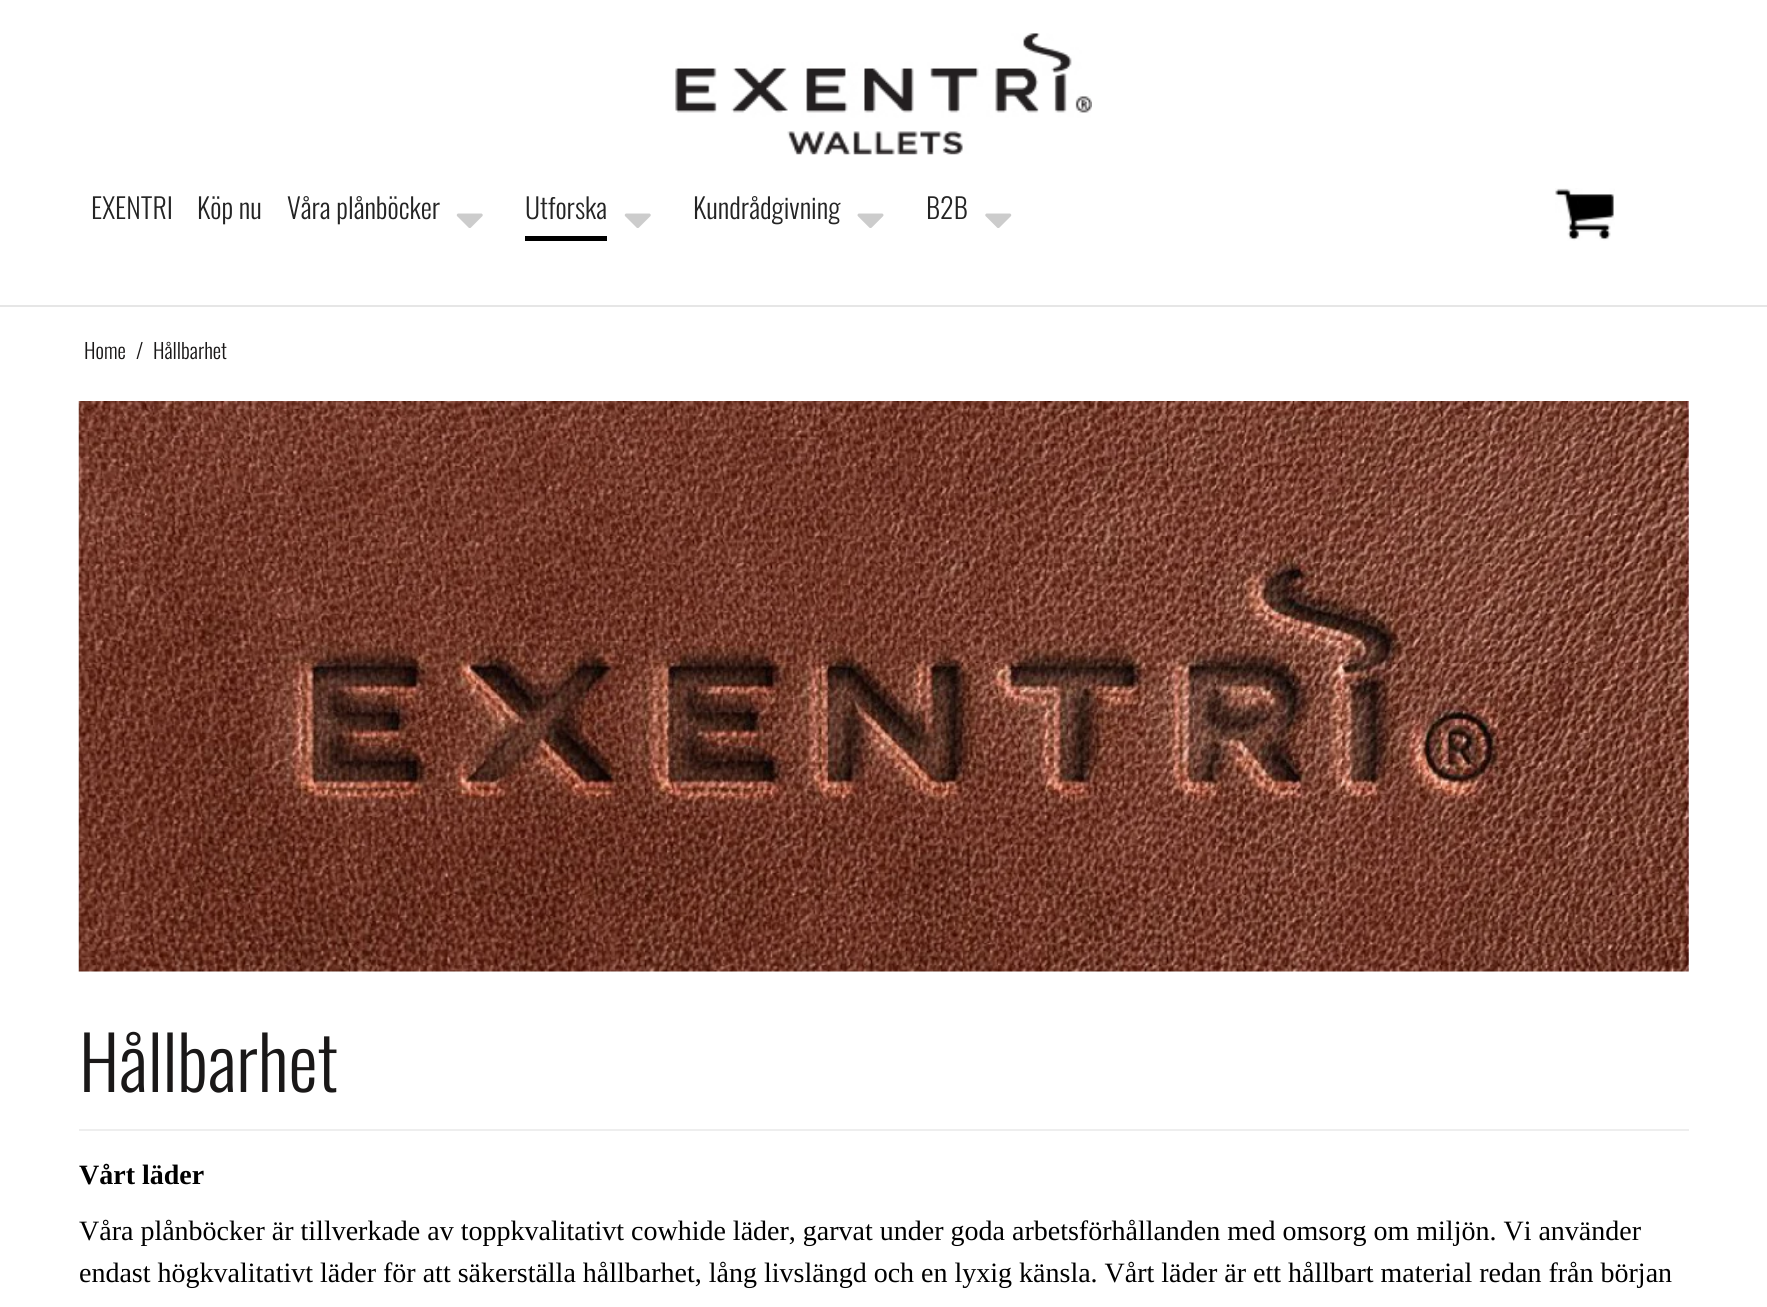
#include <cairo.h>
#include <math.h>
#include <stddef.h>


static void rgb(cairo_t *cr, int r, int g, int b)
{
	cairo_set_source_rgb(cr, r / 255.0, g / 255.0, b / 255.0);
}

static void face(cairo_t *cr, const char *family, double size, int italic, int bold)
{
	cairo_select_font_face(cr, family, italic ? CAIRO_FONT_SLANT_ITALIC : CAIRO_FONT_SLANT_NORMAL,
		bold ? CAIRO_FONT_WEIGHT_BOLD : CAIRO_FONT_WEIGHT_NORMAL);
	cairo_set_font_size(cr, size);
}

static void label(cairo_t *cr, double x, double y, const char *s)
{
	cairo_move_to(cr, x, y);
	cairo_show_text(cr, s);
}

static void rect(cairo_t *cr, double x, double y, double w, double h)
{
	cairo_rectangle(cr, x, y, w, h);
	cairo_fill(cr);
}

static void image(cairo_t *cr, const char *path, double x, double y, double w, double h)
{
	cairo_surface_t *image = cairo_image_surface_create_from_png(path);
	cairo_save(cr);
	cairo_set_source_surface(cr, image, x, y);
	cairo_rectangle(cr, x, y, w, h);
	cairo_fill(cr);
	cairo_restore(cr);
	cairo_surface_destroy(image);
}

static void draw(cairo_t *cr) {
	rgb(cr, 255, 255, 255);
	cairo_paint(cr);
	image(cr, "image0.png", 675, 33, 417, 122);
	rgb(cr, 230, 230, 230);
	rect(cr, 0, 305, 1767, 2);
	face(cr, "Oswald Light", 28, 0, 0);
	rgb(cr, 36, 36, 36);
	label(cr, 91, 219, "EXENTRI");
	label(cr, 197, 219, "Köp nu");
	label(cr, 287, 219, "Våra plånböcker");
	image(cr, "image1.png", 456, 213, 27, 15);
	rgb(cr, 0, 0, 0);
	rect(cr, 525, 236, 82, 5);
	rgb(cr, 36, 36, 36);
	label(cr, 525, 219, "Utforska");
	image(cr, "image1.png", 624, 213, 27, 15);
	label(cr, 693, 219, "Kundrådgivning");
	image(cr, "image2.png", 857, 213, 27, 15);
	label(cr, 926, 219, "B2B");
	image(cr, "image3.png", 985, 213, 27, 15);
	image(cr, "image4.png", 1555, 188, 60, 53);
	face(cr, "Oswald Light", 21, 0, 0);
	rgb(cr, 26, 24, 24);
	label(cr, 84, 359, "Home");
	label(cr, 136, 359, "/");
	label(cr, 153, 359, "Hållbarhet");
	image(cr, "image5.png", 78, 401, 1611, 571);
	rgb(cr, 238, 238, 238);
	rect(cr, 79, 1129, 1610, 2);
	face(cr, "Oswald Light", 73.5, 0, 0);
	rgb(cr, 26, 24, 24);
	label(cr, 79, 1092, "Hållbarhet");
	face(cr, "Liberation Serif", 28, 0, 1);
	rgb(cr, 0, 0, 0);
	label(cr, 79, 1184, "Vårt läder");
	face(cr, "Liberation Serif", 28, 0, 0);
	label(cr, 79, 1240, "Våra plånböcker är tillverkade av toppkvalitativt cowhide läder, garvat under goda arbetsförhållanden med omsorg om miljön. Vi använder");
	label(cr, 79, 1282, "endast högkvalitativt läder för att säkerställa hållbarhet, lång livslängd och en lyxig känsla. Vårt läder är ett hållbart material redan från början");
}

int main(void) {
	cairo_surface_t *surface = cairo_image_surface_create(CAIRO_FORMAT_RGB24, 1767, 1307);
	cairo_t *cr = cairo_create(surface);
	cairo_font_options_t *options = cairo_font_options_create();
	cairo_font_options_set_hint_metrics(options, CAIRO_HINT_METRICS_OFF);
	cairo_font_options_set_hint_style(options, CAIRO_HINT_STYLE_NONE);
	cairo_set_font_options(cr, options);
	cairo_set_miter_limit(cr, 4);
	draw(cr);
	cairo_surface_write_to_png(surface, "render.png");
	cairo_font_options_destroy(options);
	cairo_destroy(cr);
	cairo_surface_destroy(surface);
	return 0;
}
